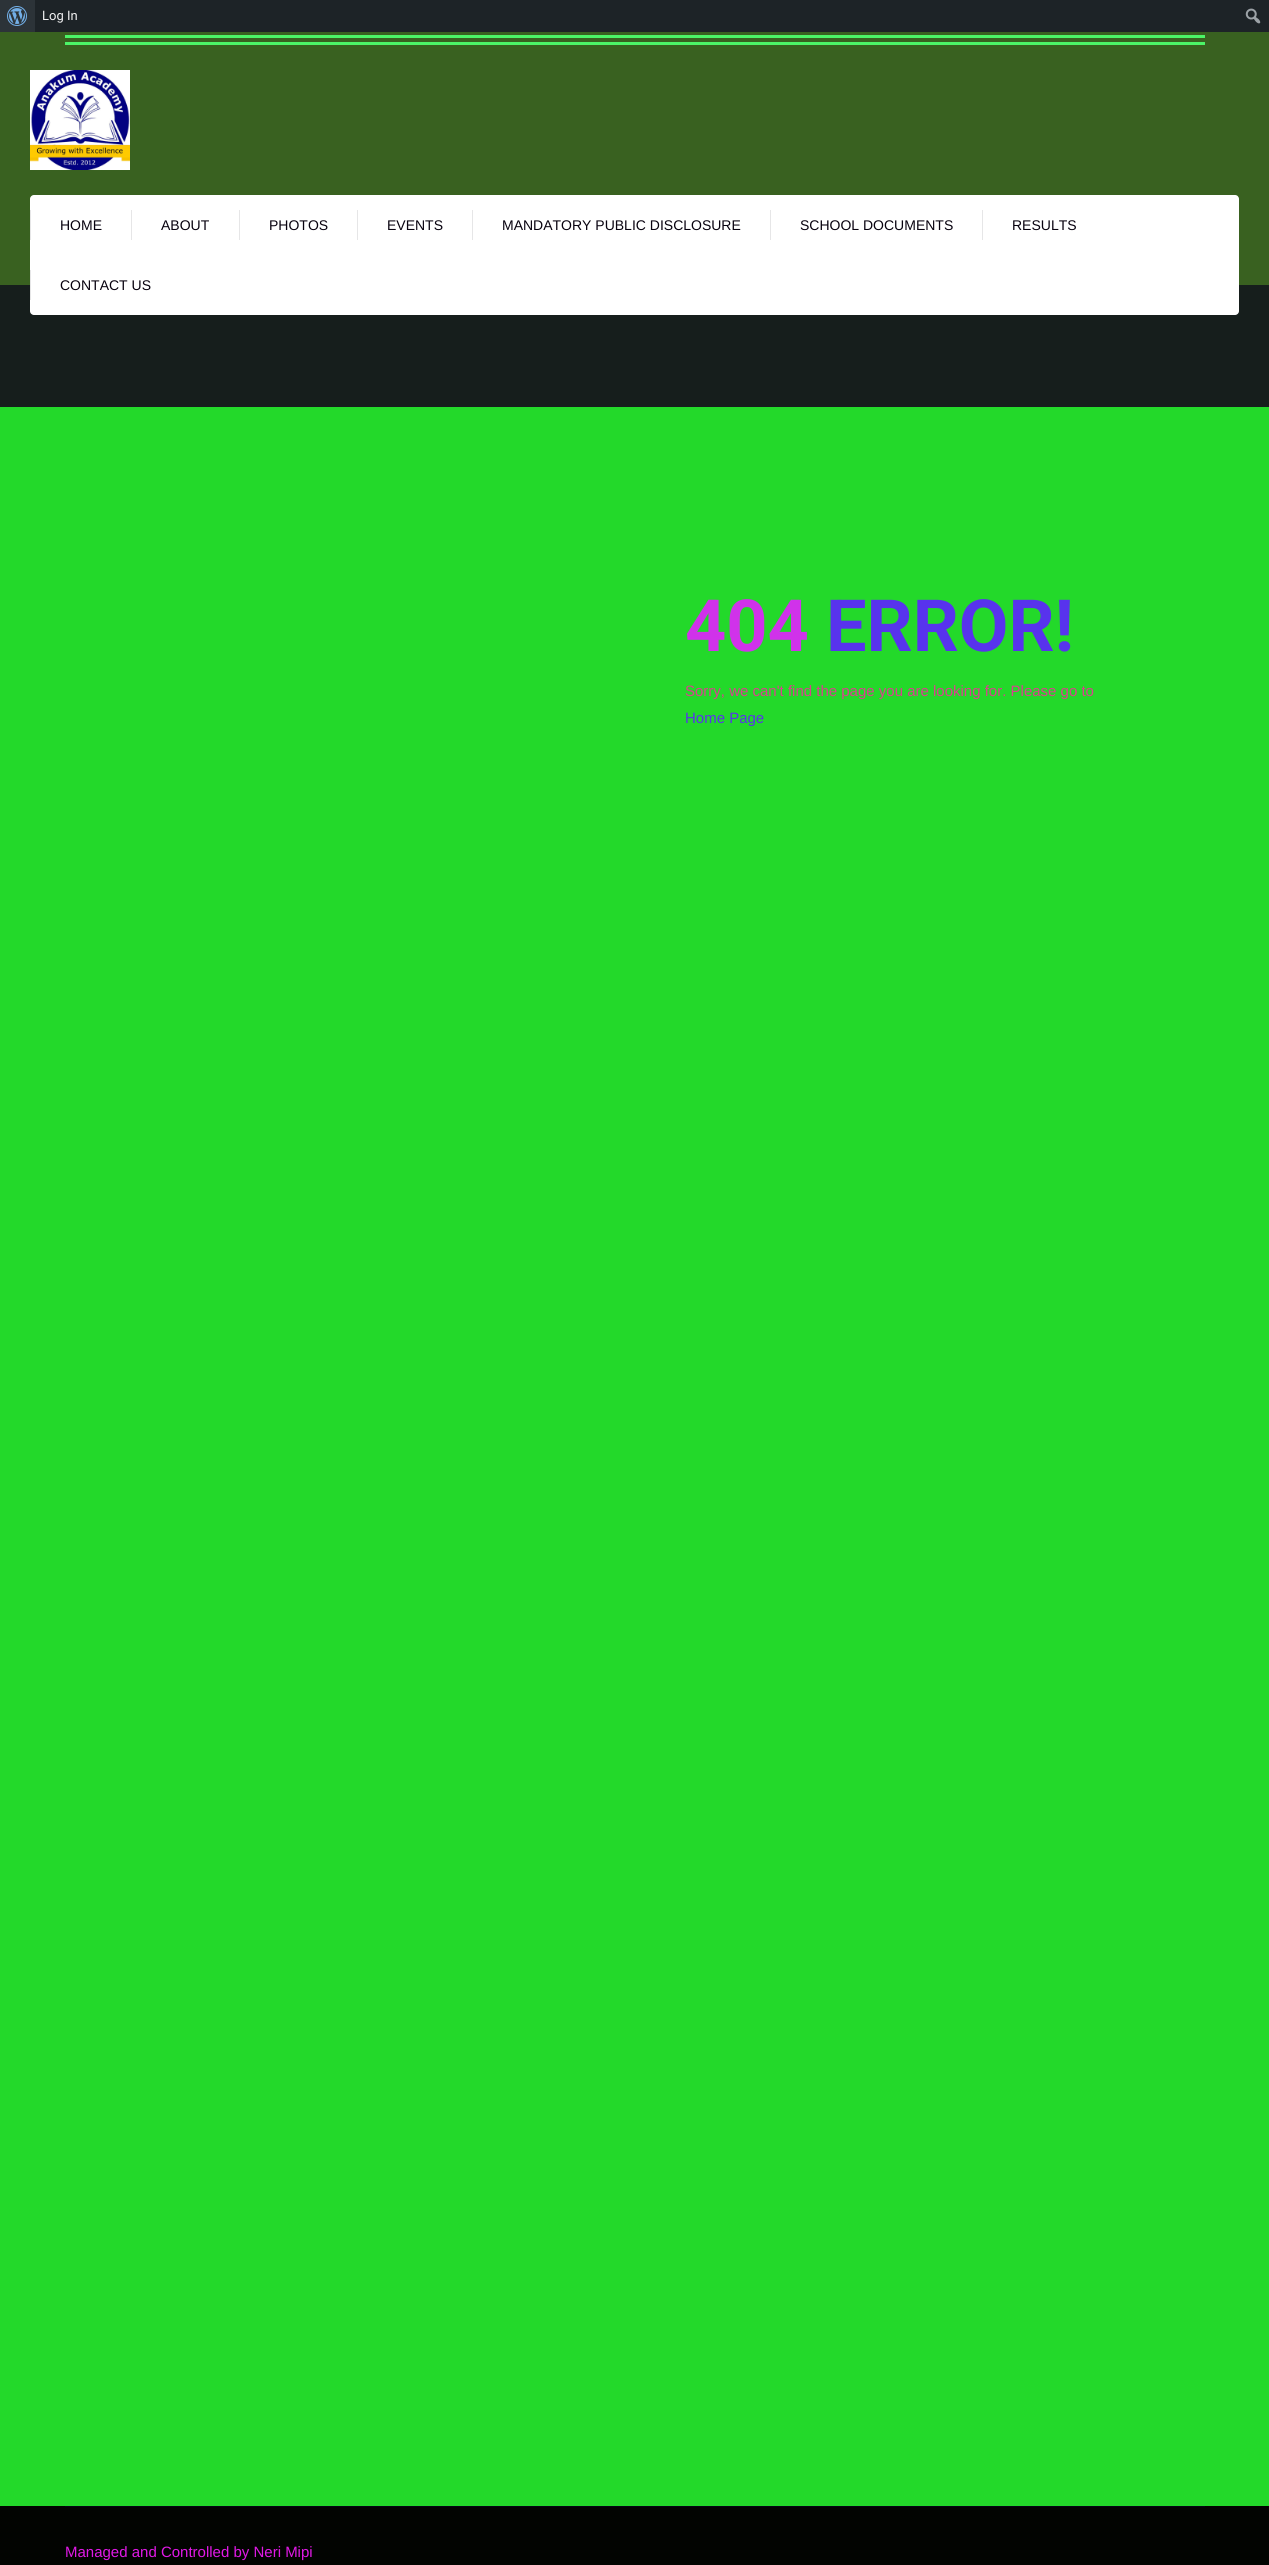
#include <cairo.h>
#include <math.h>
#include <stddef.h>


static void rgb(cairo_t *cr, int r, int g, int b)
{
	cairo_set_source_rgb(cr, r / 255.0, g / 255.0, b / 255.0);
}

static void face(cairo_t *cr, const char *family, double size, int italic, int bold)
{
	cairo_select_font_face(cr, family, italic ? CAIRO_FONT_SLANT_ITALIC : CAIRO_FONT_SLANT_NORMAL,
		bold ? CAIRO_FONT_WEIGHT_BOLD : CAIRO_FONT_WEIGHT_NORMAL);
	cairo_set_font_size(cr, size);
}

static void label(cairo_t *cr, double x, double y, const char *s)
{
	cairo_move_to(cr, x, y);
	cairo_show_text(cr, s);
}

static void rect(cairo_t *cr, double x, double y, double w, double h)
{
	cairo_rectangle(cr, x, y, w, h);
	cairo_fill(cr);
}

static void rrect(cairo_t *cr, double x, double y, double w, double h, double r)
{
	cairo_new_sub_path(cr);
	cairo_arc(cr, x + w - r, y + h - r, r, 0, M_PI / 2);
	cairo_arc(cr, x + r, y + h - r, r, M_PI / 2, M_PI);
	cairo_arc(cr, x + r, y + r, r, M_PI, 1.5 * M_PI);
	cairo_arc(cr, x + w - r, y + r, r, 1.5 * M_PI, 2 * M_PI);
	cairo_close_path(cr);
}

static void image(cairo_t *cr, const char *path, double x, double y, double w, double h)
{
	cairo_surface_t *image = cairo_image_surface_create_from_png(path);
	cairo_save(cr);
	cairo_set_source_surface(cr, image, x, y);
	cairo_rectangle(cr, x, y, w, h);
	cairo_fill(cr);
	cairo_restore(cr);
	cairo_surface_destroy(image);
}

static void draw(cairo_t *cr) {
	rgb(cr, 35, 217, 42);
	cairo_paint(cr);
	rgb(cr, 29, 35, 39);
	rect(cr, 35, 0, 1234, 32);
	rgb(cr, 44, 51, 56);
	rect(cr, 0, 0, 35, 32);
	image(cr, "image0.png", 7, 6, 20, 20);
	face(cr, "Roboto", 13, 0, 0);
	rgb(cr, 240, 240, 241);
	label(cr, 42, 20, "Log In");
	image(cr, "image1.png", 1245, 8, 16, 16);
	rgb(cr, 57, 97, 32);
	rect(cr, 0, 32, 1269, 253);
	rgb(cr, 76, 245, 103);
	rect(cr, 65, 35, 1140, 3);
	rect(cr, 65, 42, 1140, 3);
	image(cr, "image2.png", 30, 70, 100, 100);
	rgb(cr, 22, 30, 28);
	rect(cr, 0, 285, 1269, 122);
	rgb(cr, 255, 255, 255);
	rrect(cr, 30, 195, 1209, 120, 4);
	cairo_fill(cr);
	rgb(cr, 230, 230, 231);
	rect(cr, 30, 210, 1, 30);
	face(cr, "Liberation Sans", 14, 0, 0);
	rgb(cr, 8, 2, 15);
	label(cr, 60, 230, "HOME");
	rgb(cr, 230, 230, 231);
	rect(cr, 131, 210, 1, 30);
	rgb(cr, 8, 2, 15);
	label(cr, 161, 230, "ABOUT");
	rgb(cr, 230, 230, 231);
	rect(cr, 239, 210, 1, 30);
	rgb(cr, 8, 2, 15);
	label(cr, 269, 230, "PHOTOS");
	rgb(cr, 230, 230, 231);
	rect(cr, 357, 210, 1, 30);
	rgb(cr, 8, 2, 15);
	label(cr, 387, 230, "EVENTS");
	rgb(cr, 230, 230, 231);
	rect(cr, 472, 210, 1, 30);
	rgb(cr, 8, 2, 15);
	label(cr, 502, 230, "MANDATORY PUBLIC DISCLOSURE");
	rgb(cr, 230, 230, 231);
	rect(cr, 770, 210, 1, 30);
	rgb(cr, 8, 2, 15);
	label(cr, 800, 230, "SCHOOL DOCUMENTS");
	rgb(cr, 230, 230, 231);
	rect(cr, 982, 210, 1, 30);
	rgb(cr, 8, 2, 15);
	label(cr, 1012, 230, "RESULTS");
	rgb(cr, 230, 230, 231);
	rect(cr, 30, 270, 1, 30);
	rgb(cr, 8, 2, 15);
	label(cr, 60, 290, "CONTACT US");
	face(cr, "Roboto", 72, 0, 1);
	rgb(cr, 208, 50, 234);
	label(cr, 685, 651, "404");
	rgb(cr, 88, 51, 237);
	label(cr, 826, 651, "ERROR!");
	face(cr, "Liberation Sans", 15, 0, 0);
	rgb(cr, 218, 64, 142);
	label(cr, 685, 696, "Sorry, we can't find the page you are looking for. Please go to");
	rgb(cr, 88, 51, 237);
	label(cr, 685, 723, "Home Page");
	rgb(cr, 2, 4, 1);
	rect(cr, 0, 2506, 1269, 59);
	rgb(cr, 4, 6, 22);
	rect(cr, 65, 2506, 1140, 1);
	rgb(cr, 225, 25, 230);
	label(cr, 65, 2557, "Managed and Controlled by Neri Mipi");
}

int main(void) {
	cairo_surface_t *surface = cairo_image_surface_create(CAIRO_FORMAT_RGB24, 1269, 2565);
	cairo_t *cr = cairo_create(surface);
	cairo_font_options_t *options = cairo_font_options_create();
	cairo_font_options_set_hint_metrics(options, CAIRO_HINT_METRICS_OFF);
	cairo_font_options_set_hint_style(options, CAIRO_HINT_STYLE_NONE);
	cairo_set_font_options(cr, options);
	cairo_set_miter_limit(cr, 4);
	draw(cr);
	cairo_surface_write_to_png(surface, "render.png");
	cairo_font_options_destroy(options);
	cairo_destroy(cr);
	cairo_surface_destroy(surface);
	return 0;
}
